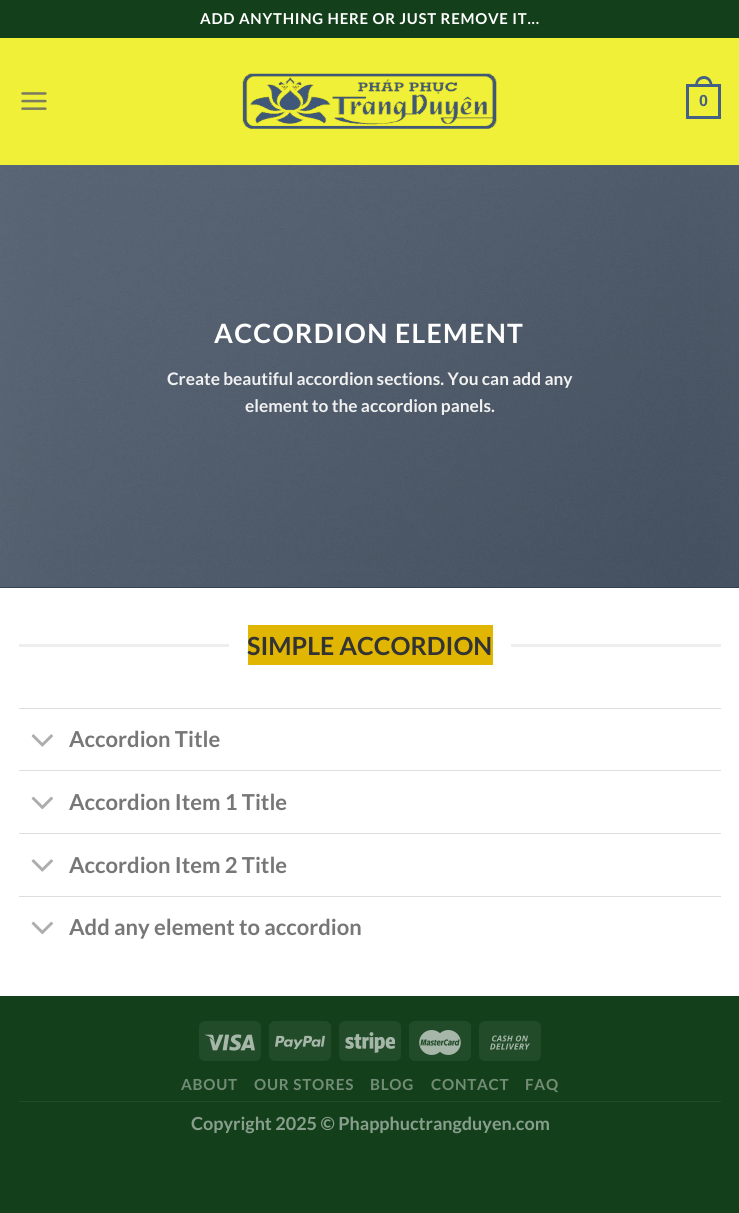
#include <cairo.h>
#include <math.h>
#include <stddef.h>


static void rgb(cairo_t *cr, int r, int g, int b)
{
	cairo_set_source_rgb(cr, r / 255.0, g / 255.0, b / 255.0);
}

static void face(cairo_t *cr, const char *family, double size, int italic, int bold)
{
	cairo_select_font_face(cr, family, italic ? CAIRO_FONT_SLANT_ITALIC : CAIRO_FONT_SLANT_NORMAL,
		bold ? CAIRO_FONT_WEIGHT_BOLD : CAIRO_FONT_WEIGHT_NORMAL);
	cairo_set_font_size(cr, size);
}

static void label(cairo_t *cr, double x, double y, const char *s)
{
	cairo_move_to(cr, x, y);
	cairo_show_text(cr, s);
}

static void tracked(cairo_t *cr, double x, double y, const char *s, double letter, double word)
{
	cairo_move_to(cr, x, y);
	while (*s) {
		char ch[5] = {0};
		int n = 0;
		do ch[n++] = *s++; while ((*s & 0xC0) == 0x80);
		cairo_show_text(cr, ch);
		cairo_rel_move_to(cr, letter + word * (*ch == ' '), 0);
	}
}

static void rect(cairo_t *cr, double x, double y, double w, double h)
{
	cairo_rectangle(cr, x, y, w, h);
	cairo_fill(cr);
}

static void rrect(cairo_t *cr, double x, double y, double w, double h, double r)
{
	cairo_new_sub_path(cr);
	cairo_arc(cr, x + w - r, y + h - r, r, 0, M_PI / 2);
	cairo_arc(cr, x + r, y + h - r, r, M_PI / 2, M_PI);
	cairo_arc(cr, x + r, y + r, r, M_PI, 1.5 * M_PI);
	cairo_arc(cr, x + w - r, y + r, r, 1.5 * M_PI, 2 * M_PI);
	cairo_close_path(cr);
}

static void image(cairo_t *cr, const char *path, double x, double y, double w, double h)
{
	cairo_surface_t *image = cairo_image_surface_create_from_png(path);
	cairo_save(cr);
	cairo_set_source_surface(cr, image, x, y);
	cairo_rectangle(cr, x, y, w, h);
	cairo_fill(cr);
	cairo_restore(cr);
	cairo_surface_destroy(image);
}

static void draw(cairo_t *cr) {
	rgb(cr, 19, 63, 27);
	cairo_paint(cr);
	rgb(cr, 255, 255, 255);
	rect(cr, 0, 588, 739, 408);
	face(cr, "Lato", 15, 0, 1);
	tracked(cr, 200, 24, "ADD ANYTHING HERE OR JUST REMOVE IT...", 0.75, 0);
	rgb(cr, 240, 240, 56);
	rect(cr, 0, 38, 739, 127);
	image(cr, "image0.png", 21, 92, 26, 18);
	image(cr, "image1.png", 242, 73, 255, 56);
	cairo_rectangle(cr, 687.5, 85.5, 32, 32);
	rgb(cr, 68, 96, 132);
	cairo_set_line_width(cr, 3);
	cairo_stroke(cr);
	cairo_set_fill_rule(cr, CAIRO_FILL_RULE_EVEN_ODD);
	cairo_new_path(cr);
	cairo_move_to(cr, 704, 76);
	cairo_curve_to(cr, 709.5, 76, 712.5, 81, 712.5, 86);
	cairo_line_to(cr, 695, 86);
	cairo_curve_to(cr, 695, 81, 698, 76, 704, 76);
	cairo_close_path(cr);
	cairo_move_to(cr, 704, 79);
	cairo_curve_to(cr, 708, 79, 710, 82.5, 710, 86);
	cairo_line_to(cr, 697.5, 86);
	cairo_curve_to(cr, 697.5, 82.5, 699.5, 79, 704, 79);
	cairo_close_path(cr);
	cairo_fill(cr);
	face(cr, "Liberation Sans", 16, 0, 1);
	label(cr, 699, 106, "0");
	rgb(cr, 40, 57, 78);
	rect(cr, 0, 587, 739, 1);
	image(cr, "image2.png", 0, 165, 739, 423);
	cairo_set_source_rgba(cr, 0.467, 0.467, 0.467, 0.1);
	rect(cr, 19, 165, 702, 1);
	face(cr, "Lato", 26.6, 0, 1);
	rgb(cr, 255, 255, 255);
	tracked(cr, 214, 343, "ACCORDION ELEMENT", 1.3, 0);
	face(cr, "Lato", 17.3, 0, 1);
	rgb(cr, 241, 241, 241);
	label(cr, 167, 385, "Create beautiful accordion sections. You can add any");
	label(cr, 245, 412, "element to the accordion panels.");
	rgb(cr, 238, 238, 238);
	rect(cr, 19, 644, 210, 3);
	rgb(cr, 224, 182, 2);
	rect(cr, 248, 625, 245, 40);
	face(cr, "Lato", 25, 0, 1);
	rgb(cr, 51, 51, 51);
	label(cr, 247, 655, "SIMPLE ACCORDION");
	rgb(cr, 238, 238, 238);
	rect(cr, 511, 644, 210, 3);
	rgb(cr, 221, 221, 221);
	rect(cr, 19, 708, 702, 1);
	image(cr, "image3.png", 31, 734, 22, 13);
	face(cr, "Lato", 22, 0, 1);
	rgb(cr, 119, 119, 119);
	label(cr, 69, 747, "Accordion Title");
	rgb(cr, 221, 221, 221);
	rect(cr, 19, 770, 702, 1);
	image(cr, "image4.png", 31, 796, 22, 14);
	rgb(cr, 119, 119, 119);
	label(cr, 69, 810, "Accordion Item 1 Title");
	rgb(cr, 221, 221, 221);
	rect(cr, 19, 833, 702, 1);
	image(cr, "image3.png", 31, 859, 22, 13);
	rgb(cr, 119, 119, 119);
	label(cr, 69, 873, "Accordion Item 2 Title");
	rgb(cr, 221, 221, 221);
	rect(cr, 19, 896, 702, 1);
	image(cr, "image4.png", 31, 921, 22, 14);
	rgb(cr, 119, 119, 119);
	label(cr, 69, 935, "Add any element to accordion");
	rgb(cr, 33, 75, 41);
	rrect(cr, 199, 1021, 62, 40, 6);
	cairo_fill(cr);
	image(cr, "image5.png", 205, 1034, 50, 17);
	rrect(cr, 269, 1021, 62, 40, 6);
	cairo_fill(cr);
	image(cr, "image6.png", 275, 1035, 50, 15);
	rrect(cr, 339, 1021, 62, 40, 6);
	cairo_fill(cr);
	image(cr, "image7.png", 345, 1032, 50, 21);
	rrect(cr, 409, 1021, 62, 40, 6);
	cairo_fill(cr);
	image(cr, "image8.png", 419, 1030, 42, 25);
	rrect(cr, 479, 1021, 62, 40, 6);
	cairo_fill(cr);
	image(cr, "image9.png", 490, 1035, 40, 15);
	rgb(cr, 34, 75, 42);
	rect(cr, 19, 1101, 702, 1);
	face(cr, "Lato", 15.25, 0, 1);
	rgb(cr, 114, 140, 118);
	tracked(cr, 181, 1090, "ABOUT", 0.75, 0);
	tracked(cr, 254, 1090, "OUR STORES", 0.75, 0);
	tracked(cr, 370, 1090, "BLOG", 0.75, 0);
	tracked(cr, 431, 1090, "CONTACT", 0.75, 0);
	tracked(cr, 525, 1090, "FAQ", 0.75, 0);
	face(cr, "Lato", 18, 0, 1);
	rgb(cr, 137, 159, 141);
	label(cr, 191, 1130, "Copyright 2025 © Phapphuctrangduyen.com");
}

int main(void) {
	cairo_surface_t *surface = cairo_image_surface_create(CAIRO_FORMAT_RGB24, 739, 1213);
	cairo_t *cr = cairo_create(surface);
	cairo_font_options_t *options = cairo_font_options_create();
	cairo_font_options_set_hint_metrics(options, CAIRO_HINT_METRICS_OFF);
	cairo_font_options_set_hint_style(options, CAIRO_HINT_STYLE_NONE);
	cairo_set_font_options(cr, options);
	cairo_set_miter_limit(cr, 4);
	draw(cr);
	cairo_surface_write_to_png(surface, "render.png");
	cairo_font_options_destroy(options);
	cairo_destroy(cr);
	cairo_surface_destroy(surface);
	return 0;
}
